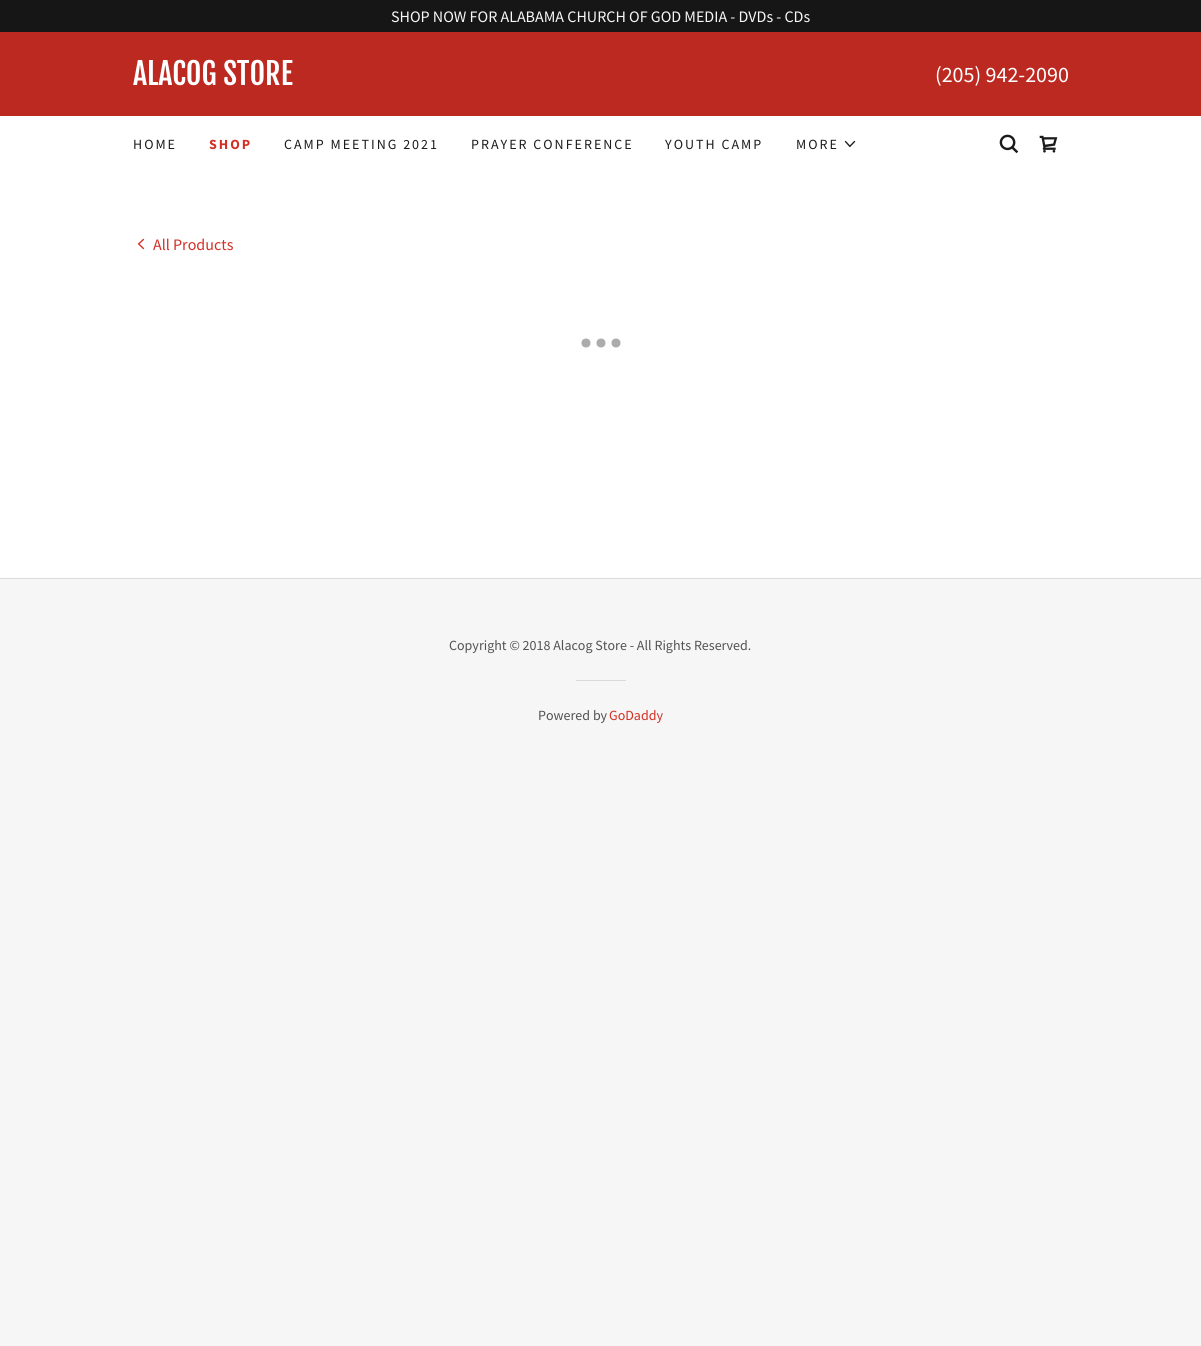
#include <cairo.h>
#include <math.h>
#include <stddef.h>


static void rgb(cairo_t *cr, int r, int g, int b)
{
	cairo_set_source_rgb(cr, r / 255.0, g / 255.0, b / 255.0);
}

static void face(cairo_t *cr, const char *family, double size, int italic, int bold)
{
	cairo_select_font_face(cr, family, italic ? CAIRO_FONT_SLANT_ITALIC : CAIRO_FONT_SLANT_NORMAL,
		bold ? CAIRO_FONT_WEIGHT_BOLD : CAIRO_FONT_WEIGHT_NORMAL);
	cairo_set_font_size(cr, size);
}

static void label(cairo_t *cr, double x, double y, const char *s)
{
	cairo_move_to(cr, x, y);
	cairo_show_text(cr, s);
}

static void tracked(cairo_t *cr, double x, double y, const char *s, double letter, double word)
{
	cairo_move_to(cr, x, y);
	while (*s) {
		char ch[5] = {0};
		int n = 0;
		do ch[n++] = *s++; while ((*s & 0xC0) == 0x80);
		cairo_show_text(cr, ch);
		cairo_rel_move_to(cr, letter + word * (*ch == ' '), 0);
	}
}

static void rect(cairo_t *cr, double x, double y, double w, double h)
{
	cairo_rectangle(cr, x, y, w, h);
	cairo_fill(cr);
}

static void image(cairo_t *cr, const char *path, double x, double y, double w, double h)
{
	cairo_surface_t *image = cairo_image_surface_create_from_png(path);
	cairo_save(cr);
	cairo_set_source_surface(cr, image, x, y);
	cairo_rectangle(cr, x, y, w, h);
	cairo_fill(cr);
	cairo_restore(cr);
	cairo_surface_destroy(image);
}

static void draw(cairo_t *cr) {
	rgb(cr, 246, 246, 246);
	cairo_paint(cr);
	rgb(cr, 22, 22, 22);
	rect(cr, 0, 0, 1201, 32);
	face(cr, "Source Sans Pro", 16, 0, 0);
	rgb(cr, 247, 247, 247);
	label(cr, 391, 22, "SHOP NOW FOR ALABAMA CHURCH OF GOD MEDIA - DVDs - CDs");
	rgb(cr, 188, 41, 32);
	rect(cr, 0, 32, 1201, 84);
	face(cr, "Fjalla One", 30, 0, 0);
	rgb(cr, 255, 255, 255);
	label(cr, 133, 85, "ALACOG STORE");
	face(cr, "Source Sans Pro", 22, 0, 0);
	label(cr, 935, 82, "(205) 942-2090");
	rect(cr, 0, 116, 1201, 462);
	face(cr, "Source Sans Pro", 14, 0, 0);
	rgb(cr, 27, 27, 27);
	tracked(cr, 133, 149, "HOME", 2, 0);
	face(cr, "Source Sans Pro", 14, 0, 1);
	rgb(cr, 210, 47, 37);
	tracked(cr, 209, 149, "SHOP", 2, 0);
	face(cr, "Source Sans Pro", 14, 0, 0);
	rgb(cr, 27, 27, 27);
	tracked(cr, 284, 149, "CAMP MEETING 2021", 2, 0);
	tracked(cr, 471, 149, "PRAYER CONFERENCE", 2, 0);
	tracked(cr, 665, 149, "YOUTH CAMP", 2, 0);
	tracked(cr, 796, 149, "MORE", 2, 0);
	image(cr, "image0.png", 844, 140, 12, 8);
	image(cr, "image1.png", 999, 134, 20, 20);
	image(cr, "image2.png", 1039, 135, 19, 18);
	image(cr, "image3.png", 137, 238, 8, 12);
	face(cr, "Source Sans Pro", 16, 0, 0);
	rgb(cr, 210, 47, 37);
	label(cr, 153, 250, "All Products");
	rgb(cr, 172, 172, 172);
	cairo_new_path(cr);
	cairo_arc(cr, 586, 343, 4.5, 0, 2 * M_PI);
	cairo_fill(cr);
	cairo_arc(cr, 601, 343, 4.5, 0, 2 * M_PI);
	cairo_fill(cr);
	cairo_arc(cr, 616, 343, 4.5, 0, 2 * M_PI);
	cairo_fill(cr);
	rgb(cr, 218, 218, 218);
	rect(cr, 0, 578, 1201, 1);
	face(cr, "Source Sans Pro", 14, 0, 0);
	rgb(cr, 82, 82, 82);
	label(cr, 449, 650, "Copyright © 2018 Alacog Store - All Rights Reserved.");
	rgb(cr, 218, 218, 218);
	rect(cr, 576, 680, 50, 1);
	rgb(cr, 82, 82, 82);
	label(cr, 538, 720, "Powered by");
	rgb(cr, 210, 47, 37);
	label(cr, 609, 720, "GoDaddy");
}

int main(void) {
	cairo_surface_t *surface = cairo_image_surface_create(CAIRO_FORMAT_RGB24, 1201, 1346);
	cairo_t *cr = cairo_create(surface);
	cairo_font_options_t *options = cairo_font_options_create();
	cairo_font_options_set_hint_metrics(options, CAIRO_HINT_METRICS_OFF);
	cairo_font_options_set_hint_style(options, CAIRO_HINT_STYLE_NONE);
	cairo_set_font_options(cr, options);
	cairo_set_miter_limit(cr, 4);
	draw(cr);
	cairo_surface_write_to_png(surface, "render.png");
	cairo_font_options_destroy(options);
	cairo_destroy(cr);
	cairo_surface_destroy(surface);
	return 0;
}
